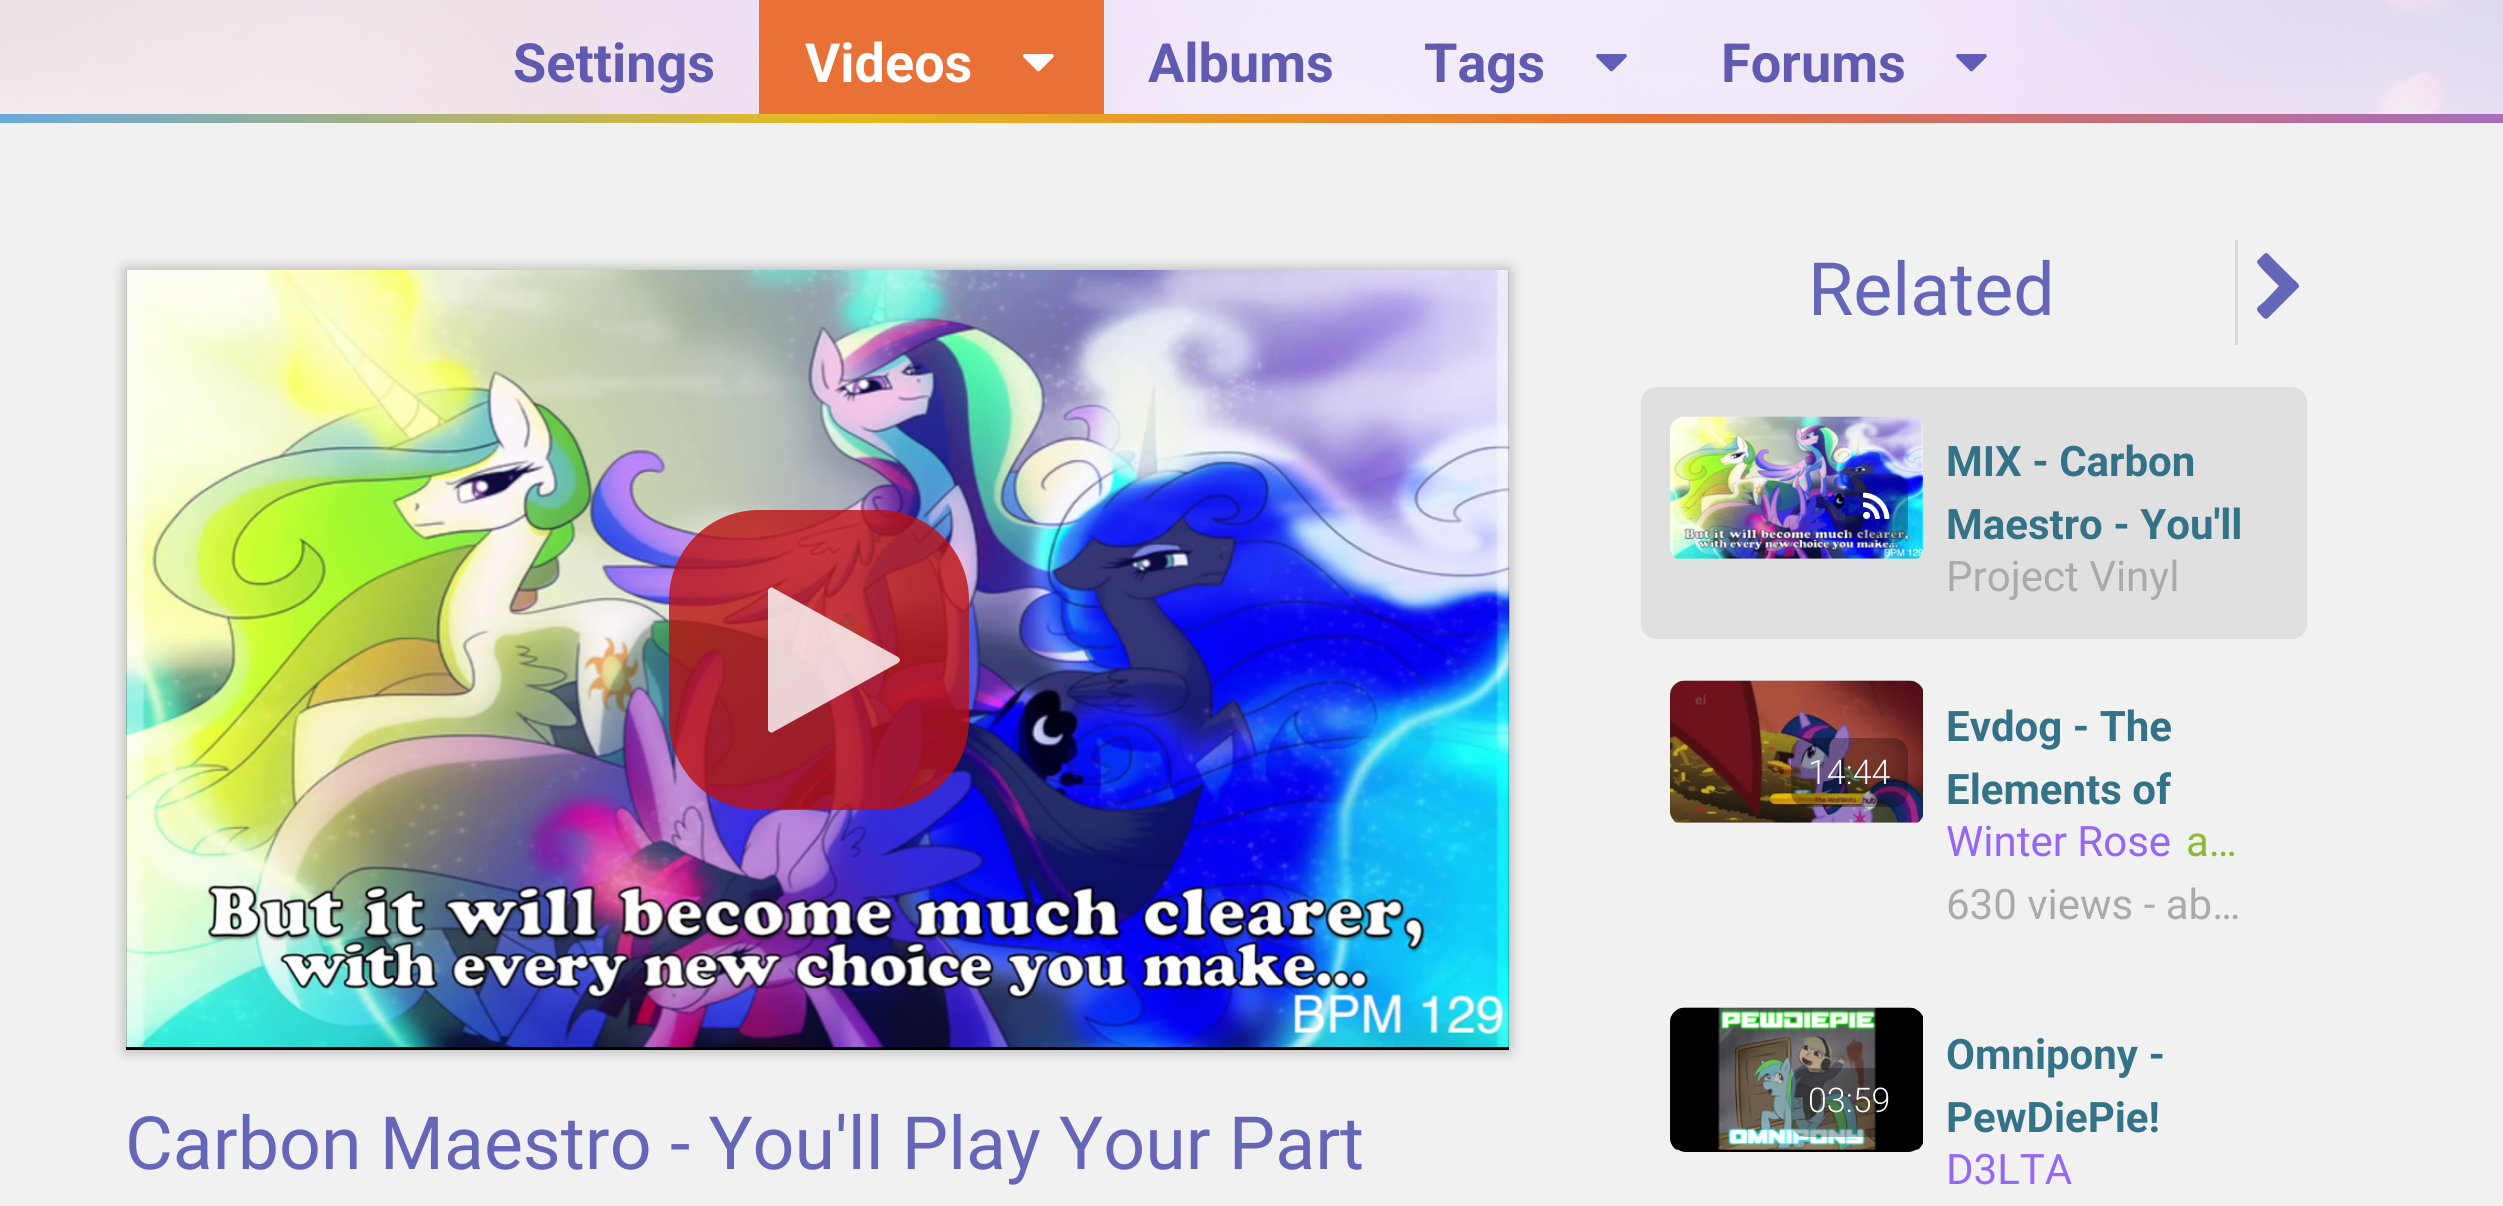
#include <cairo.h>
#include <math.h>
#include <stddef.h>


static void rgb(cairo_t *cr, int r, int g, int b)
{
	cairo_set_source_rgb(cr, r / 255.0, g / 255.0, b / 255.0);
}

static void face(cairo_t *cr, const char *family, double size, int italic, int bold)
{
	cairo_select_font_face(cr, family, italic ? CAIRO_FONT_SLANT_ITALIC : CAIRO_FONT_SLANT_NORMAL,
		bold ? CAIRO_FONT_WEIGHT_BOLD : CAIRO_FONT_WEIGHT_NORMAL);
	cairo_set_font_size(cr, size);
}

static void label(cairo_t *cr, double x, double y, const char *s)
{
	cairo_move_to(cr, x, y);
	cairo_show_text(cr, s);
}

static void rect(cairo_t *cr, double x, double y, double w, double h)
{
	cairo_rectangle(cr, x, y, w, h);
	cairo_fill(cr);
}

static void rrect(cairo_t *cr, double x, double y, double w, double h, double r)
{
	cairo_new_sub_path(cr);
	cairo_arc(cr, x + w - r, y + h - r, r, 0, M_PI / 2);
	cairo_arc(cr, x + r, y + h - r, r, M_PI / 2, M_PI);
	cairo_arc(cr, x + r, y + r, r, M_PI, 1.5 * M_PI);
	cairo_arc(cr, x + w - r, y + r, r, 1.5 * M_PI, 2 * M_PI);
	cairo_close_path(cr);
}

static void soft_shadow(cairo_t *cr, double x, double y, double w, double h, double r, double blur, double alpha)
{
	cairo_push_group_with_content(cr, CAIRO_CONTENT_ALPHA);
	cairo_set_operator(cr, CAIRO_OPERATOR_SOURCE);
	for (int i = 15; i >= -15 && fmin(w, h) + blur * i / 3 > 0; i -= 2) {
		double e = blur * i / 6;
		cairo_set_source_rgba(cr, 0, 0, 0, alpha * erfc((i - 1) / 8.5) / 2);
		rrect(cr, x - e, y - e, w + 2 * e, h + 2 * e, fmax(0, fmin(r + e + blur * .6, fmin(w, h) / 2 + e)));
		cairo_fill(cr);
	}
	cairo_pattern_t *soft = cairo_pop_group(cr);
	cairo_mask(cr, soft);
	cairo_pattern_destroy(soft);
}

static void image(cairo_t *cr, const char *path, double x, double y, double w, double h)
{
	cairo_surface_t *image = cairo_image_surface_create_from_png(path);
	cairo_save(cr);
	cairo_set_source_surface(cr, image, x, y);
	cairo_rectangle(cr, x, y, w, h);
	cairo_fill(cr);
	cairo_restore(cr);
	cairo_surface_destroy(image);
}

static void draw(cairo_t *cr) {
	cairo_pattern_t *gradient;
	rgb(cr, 241, 241, 241);
	cairo_paint(cr);
	image(cr, "image0.png", 0, 0, 2503, 114);
	face(cr, "Roboto", 54, 0, 1);
	rgb(cr, 96, 90, 177);
	label(cr, 513, 82, "Settings");
	rgb(cr, 233, 113, 53);
	rect(cr, 759, 0, 345, 114);
	rgb(cr, 255, 255, 255);
	label(cr, 805, 82, "Videos");
	image(cr, "image1.png", 1023, 54, 31, 18);
	rgb(cr, 96, 90, 177);
	label(cr, 1148, 82, "Albums");
	label(cr, 1424, 82, "Tags");
	image(cr, "image2.png", 1596, 54, 31, 18);
	label(cr, 1721, 82, "Forums");
	image(cr, "image3.png", 1956, 54, 31, 18);
	gradient = cairo_pattern_create_linear(0, 119, 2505, 118);
	cairo_pattern_add_color_stop_rgba(gradient, 0, 0.416, 0.667, 0.867, 1);
	cairo_pattern_add_color_stop_rgba(gradient, 0.33, 0.902, 0.725, 0.122, 1);
	cairo_pattern_add_color_stop_rgba(gradient, 0.66, 0.914, 0.443, 0.208, 1);
	cairo_pattern_add_color_stop_rgba(gradient, 1, 0.651, 0.431, 0.745, 1);
	cairo_set_source(cr, gradient);
	cairo_pattern_destroy(gradient);
	rect(cr, 0, 114, 2503, 9);
	rgb(cr, 0, 0, 0);
	soft_shadow(cr, 126, 270, 1383, 780, 0, 7.5, 0.3);
	rgb(cr, 0, 0, 0);
	rect(cr, 126, 270, 1383, 780);
	image(cr, "image4.png", 125, 270, 1385, 778);
	cairo_set_source_rgba(cr, 0.733, 0.067, 0.067, 0.8);
	rrect(cr, 669, 510, 300, 300, 90);
	cairo_fill(cr);
	cairo_set_source_rgba(cr, 1, 1, 1, 0.8);
	cairo_new_path(cr);
	cairo_move_to(cr, 898, 663);
	cairo_line_to(cr, 773, 732);
	cairo_curve_to(cr, 772, 733, 771, 733, 770, 732);
	cairo_curve_to(cr, 769, 732, 768, 731, 768, 729);
	cairo_line_to(cr, 768, 591);
	cairo_curve_to(cr, 768, 589, 769, 588, 770, 588);
	cairo_curve_to(cr, 771, 587, 772, 587, 773, 588);
	cairo_line_to(cr, 898, 657);
	cairo_curve_to(cr, 899, 658, 900, 659, 900, 660);
	cairo_curve_to(cr, 900, 661, 899, 662, 898, 663);
	cairo_close_path(cr);
	cairo_fill(cr);
	face(cr, "Roboto", 73.5, 0, 0);
	rgb(cr, 102, 102, 184);
	label(cr, 1808, 315, "Related");
	rgb(cr, 217, 217, 217);
	rect(cr, 2235, 240, 3, 105);
	rgb(cr, 102, 102, 184);
	cairo_new_path(cr);
	cairo_move_to(cr, 2298, 288);
	cairo_line_to(cr, 2268, 318);
	cairo_curve_to(cr, 2265, 321, 2261, 315, 2260, 314);
	cairo_curve_to(cr, 2254, 308, 2258, 307, 2265, 301);
	cairo_line_to(cr, 2279, 286);
	cairo_curve_to(cr, 2276, 283, 2257, 265, 2257, 262);
	cairo_curve_to(cr, 2257, 260, 2260, 259, 2261, 257);
	cairo_curve_to(cr, 2267, 251, 2266, 252, 2273, 259);
	cairo_line_to(cr, 2293, 279);
	cairo_curve_to(cr, 2294, 280, 2300, 284, 2299, 287);
	cairo_close_path(cr);
	cairo_fill(cr);
	rgb(cr, 224, 224, 224);
	rrect(cr, 1641, 387, 666, 252, 15);
	cairo_fill(cr);
	image(cr, "image5.png", 1670, 416, 253, 143);
	cairo_set_source_rgba(cr, 0, 0, 0, 0.3);
	rrect(cr, 1845, 474, 63, 69, 15);
	cairo_fill(cr);
	image(cr, "image6.png", 1863, 492, 27, 27);
	face(cr, "Roboto", 42, 0, 1);
	rgb(cr, 51, 114, 135);
	label(cr, 1946, 476, "MIX - Carbon");
	label(cr, 1946, 539, "Maestro - You'll");
	face(cr, "Roboto", 42, 0, 0);
	rgb(cr, 170, 170, 170);
	label(cr, 1946, 591, "Project Vinyl");
	image(cr, "image7.png", 1670, 680, 253, 143);
	cairo_set_source_rgba(cr, 0, 0, 0, 0.3);
	rrect(cr, 1791, 738, 117, 69, 15);
	cairo_fill(cr);
	face(cr, "Roboto Light", 34, 0, 0);
	rgb(cr, 255, 255, 255);
	label(cr, 1808, 784, "14:44");
	face(cr, "Roboto", 42, 0, 1);
	rgb(cr, 51, 114, 135);
	label(cr, 1946, 741, "Evdog - The");
	label(cr, 1946, 804, "Elements of");
	face(cr, "Roboto", 42, 0, 0);
	rgb(cr, 150, 103, 244);
	label(cr, 1946, 856, "Winter Rose");
	rgb(cr, 141, 185, 54);
	label(cr, 2186, 856, "a…");
	rgb(cr, 170, 170, 170);
	label(cr, 1946, 919, "630 views - ab…");
	rgb(cr, 0, 0, 0);
	rrect(cr, 1671, 1008, 252, 144, 15);
	cairo_fill(cr);
	image(cr, "image8.png", 1670, 1007, 253, 143);
	cairo_set_source_rgba(cr, 0, 0, 0, 0.3);
	rrect(cr, 1791, 1068, 117, 69, 15);
	cairo_fill(cr);
	face(cr, "Roboto Light", 34, 0, 0);
	rgb(cr, 255, 255, 255);
	label(cr, 1808, 1112, "03:59");
	face(cr, "Roboto", 42, 0, 1);
	rgb(cr, 51, 114, 135);
	label(cr, 1946, 1069, "Omnipony -");
	label(cr, 1946, 1132, "PewDiePie!");
	face(cr, "Roboto", 42, 0, 0);
	rgb(cr, 150, 103, 244);
	label(cr, 1946, 1184, "D3LTA");
	face(cr, "Roboto", 73.5, 0, 0);
	rgb(cr, 102, 102, 184);
	label(cr, 125, 1169, "Carbon Maestro - You'll Play Your Part");
}

int main(void) {
	cairo_surface_t *surface = cairo_image_surface_create(CAIRO_FORMAT_RGB24, 2503, 1206);
	cairo_t *cr = cairo_create(surface);
	cairo_font_options_t *options = cairo_font_options_create();
	cairo_font_options_set_hint_metrics(options, CAIRO_HINT_METRICS_OFF);
	cairo_font_options_set_hint_style(options, CAIRO_HINT_STYLE_NONE);
	cairo_set_font_options(cr, options);
	cairo_set_miter_limit(cr, 4);
	draw(cr);
	cairo_surface_write_to_png(surface, "render.png");
	cairo_font_options_destroy(options);
	cairo_destroy(cr);
	cairo_surface_destroy(surface);
	return 0;
}
